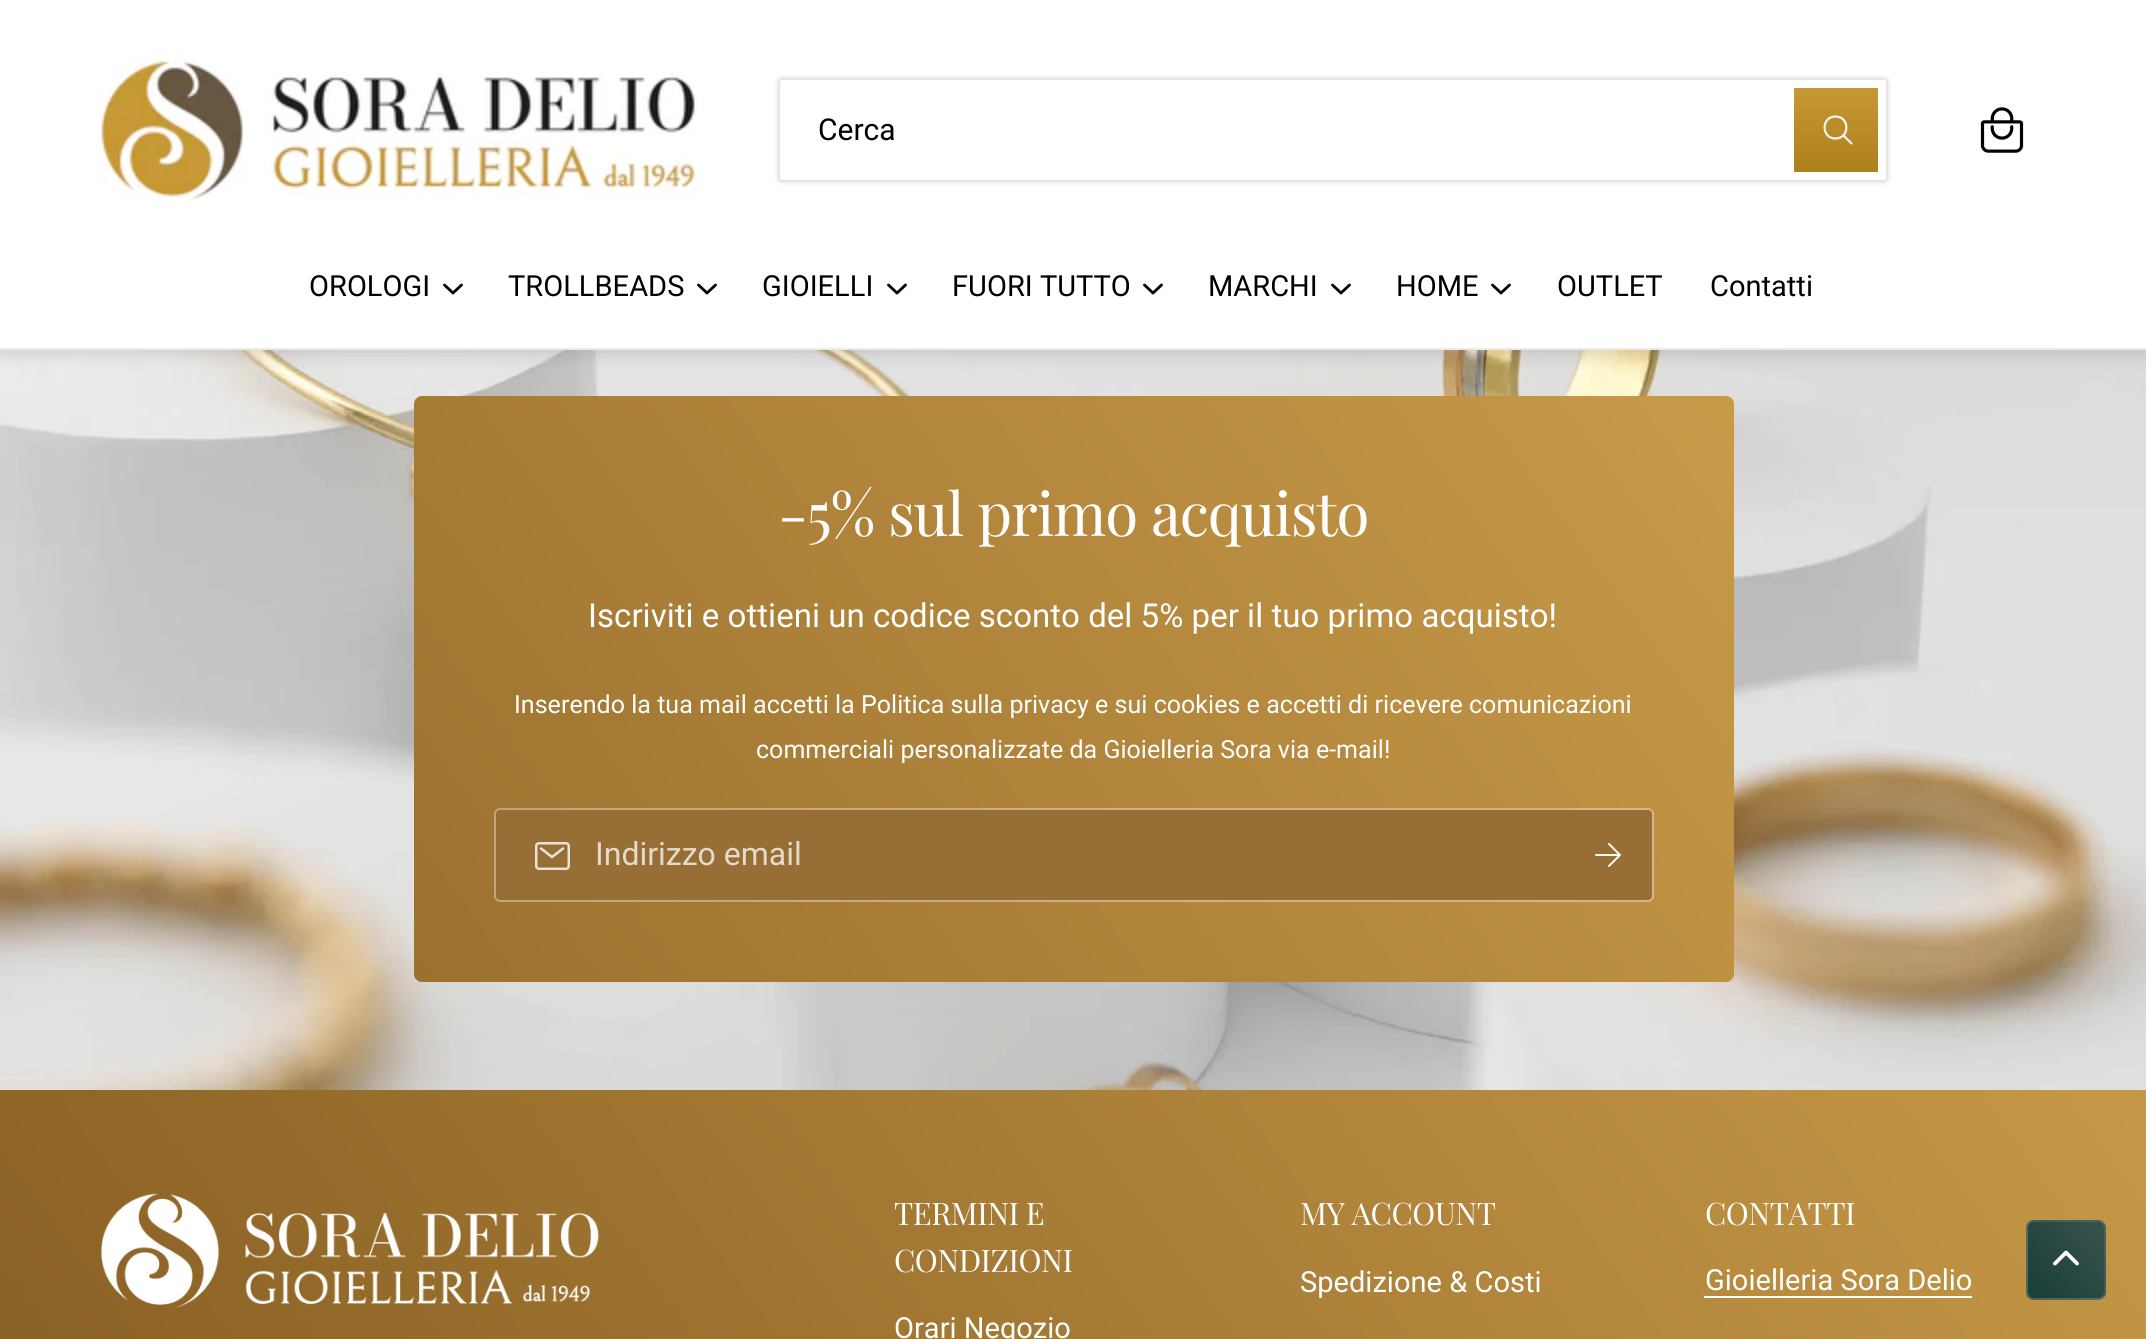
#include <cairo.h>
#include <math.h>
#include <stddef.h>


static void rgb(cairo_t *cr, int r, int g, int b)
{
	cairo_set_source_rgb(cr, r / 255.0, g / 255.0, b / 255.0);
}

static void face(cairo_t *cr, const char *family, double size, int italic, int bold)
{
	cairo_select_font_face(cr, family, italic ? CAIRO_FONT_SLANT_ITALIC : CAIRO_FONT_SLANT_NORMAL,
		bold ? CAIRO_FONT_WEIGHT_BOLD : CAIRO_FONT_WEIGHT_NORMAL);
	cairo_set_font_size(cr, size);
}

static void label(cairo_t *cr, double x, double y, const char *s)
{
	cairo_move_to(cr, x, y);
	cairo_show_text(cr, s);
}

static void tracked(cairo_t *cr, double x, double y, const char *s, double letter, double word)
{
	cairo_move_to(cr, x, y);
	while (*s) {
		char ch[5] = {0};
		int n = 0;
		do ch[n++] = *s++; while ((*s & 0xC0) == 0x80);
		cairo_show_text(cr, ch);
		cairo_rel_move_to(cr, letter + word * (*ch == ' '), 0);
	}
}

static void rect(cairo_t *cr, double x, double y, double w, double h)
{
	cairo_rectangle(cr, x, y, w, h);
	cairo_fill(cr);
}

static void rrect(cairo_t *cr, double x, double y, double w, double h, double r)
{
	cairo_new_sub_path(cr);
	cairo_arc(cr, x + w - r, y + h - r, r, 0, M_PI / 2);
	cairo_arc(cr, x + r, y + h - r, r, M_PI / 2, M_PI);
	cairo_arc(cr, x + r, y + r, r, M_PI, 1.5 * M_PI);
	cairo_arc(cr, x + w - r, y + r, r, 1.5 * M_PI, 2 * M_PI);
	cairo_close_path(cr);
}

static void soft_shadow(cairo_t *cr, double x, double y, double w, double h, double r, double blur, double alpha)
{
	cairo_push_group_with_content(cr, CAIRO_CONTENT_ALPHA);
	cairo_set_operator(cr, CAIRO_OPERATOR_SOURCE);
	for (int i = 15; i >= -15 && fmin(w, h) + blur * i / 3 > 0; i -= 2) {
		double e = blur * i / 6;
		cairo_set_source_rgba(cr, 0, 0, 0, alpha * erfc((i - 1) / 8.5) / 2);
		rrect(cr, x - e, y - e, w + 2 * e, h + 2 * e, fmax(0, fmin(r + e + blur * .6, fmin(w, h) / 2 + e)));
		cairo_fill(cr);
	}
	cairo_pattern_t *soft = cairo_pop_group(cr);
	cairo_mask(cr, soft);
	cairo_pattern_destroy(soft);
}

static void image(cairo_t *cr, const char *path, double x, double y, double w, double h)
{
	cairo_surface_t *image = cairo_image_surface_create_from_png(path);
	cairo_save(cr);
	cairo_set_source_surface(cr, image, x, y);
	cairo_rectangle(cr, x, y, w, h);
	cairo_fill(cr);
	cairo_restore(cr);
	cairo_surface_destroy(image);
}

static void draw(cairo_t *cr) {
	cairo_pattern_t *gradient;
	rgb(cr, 255, 255, 255);
	cairo_paint(cr);
	image(cr, "image2.png", 0, 350, 2146, 740);
	rgb(cr, 0, 0, 0);
	soft_shadow(cr, 0, 2, 2146, 350, 0, 10, 0.15);
	rgb(cr, 255, 255, 255);
	rect(cr, 0, 0, 2146, 348);
	image(cr, "image0.png", 100, 54, 598, 146);
	gradient = cairo_pattern_create_linear(1836, 88, 1836, 172);
	cairo_pattern_add_color_stop_rgba(gradient, 0, 0.776, 0.6, 0.208, 1);
	cairo_pattern_add_color_stop_rgba(gradient, 0.98, 0.678, 0.502, 0.11, 1);
	cairo_set_source(cr, gradient);
	cairo_pattern_destroy(gradient);
	rect(cr, 1794, 88, 84, 84);
	cairo_new_path(cr);
	cairo_move_to(cr, 1835.5, 116.5);
	cairo_curve_to(cr, 1821, 116.5, 1821, 138.5, 1835.5, 138.5);
	cairo_curve_to(cr, 1850, 138.5, 1850, 116.5, 1835.5, 116.5);
	cairo_close_path(cr);
	rgb(cr, 243, 243, 243);
	cairo_set_line_width(cr, 2.2);
	cairo_stroke(cr);
	cairo_new_path(cr);
	cairo_move_to(cr, 1844, 136);
	cairo_line_to(cr, 1851.5, 143.5);
	cairo_set_line_cap(cr, CAIRO_LINE_CAP_ROUND);
	cairo_stroke(cr);
	cairo_save(cr);
	cairo_set_fill_rule(cr, CAIRO_FILL_RULE_EVEN_ODD);
	cairo_new_path(cr);
	cairo_move_to(cr, 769, 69);
	cairo_line_to(cr, 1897, 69);
	cairo_line_to(cr, 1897, 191);
	cairo_line_to(cr, 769, 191);
	cairo_close_path(cr);
	cairo_move_to(cr, 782, 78);
	cairo_line_to(cr, 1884, 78);
	cairo_curve_to(cr, 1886, 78, 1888, 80, 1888, 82);
	cairo_line_to(cr, 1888, 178);
	cairo_curve_to(cr, 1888, 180, 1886, 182, 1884, 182);
	cairo_line_to(cr, 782, 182);
	cairo_curve_to(cr, 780, 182, 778, 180, 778, 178);
	cairo_line_to(cr, 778, 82);
	cairo_curve_to(cr, 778, 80, 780, 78, 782, 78);
	cairo_close_path(cr);
	cairo_clip(cr);
	rgb(cr, 0, 0, 0);
	soft_shadow(cr, 778, 78, 1110, 104, 4, 2.5, 0.15);
	cairo_restore(cr);
	rrect(cr, 779, 79, 1108, 102, 3);
	cairo_set_source_rgba(cr, 0, 0, 0, 0.1);
	cairo_set_line_width(cr, 2);
	cairo_set_line_cap(cr, CAIRO_LINE_CAP_BUTT);
	cairo_stroke(cr);
	face(cr, "Roboto", 30, 0, 0);
	rgb(cr, 0, 0, 0);
	label(cr, 818, 140, "Cerca");
	image(cr, "image1.png", 1980, 107, 44, 46);
	rgb(cr, 235, 235, 235);
	rect(cr, 0, 348, 2146, 2);
	face(cr, "Roboto", 29, 0, 0);
	rgb(cr, 0, 0, 0);
	tracked(cr, 309, 296, "OROLOGI", 0.03, 0);
	cairo_new_path(cr);
	cairo_move_to(cr, 444.5, 285);
	cairo_line_to(cr, 453, 293);
	cairo_line_to(cr, 461.5, 285);
	cairo_set_line_width(cr, 2.8);
	cairo_set_line_cap(cr, CAIRO_LINE_CAP_ROUND);
	cairo_set_line_join(cr, CAIRO_LINE_JOIN_ROUND);
	cairo_stroke(cr);
	tracked(cr, 508, 296, "TROLLBEADS", 0.03, 0);
	cairo_new_path(cr);
	cairo_move_to(cr, 698.5, 285);
	cairo_line_to(cr, 707, 293);
	cairo_line_to(cr, 715.5, 285);
	cairo_stroke(cr);
	tracked(cr, 762, 296, "GIOIELLI", 0.03, 0);
	cairo_new_path(cr);
	cairo_move_to(cr, 888.5, 285);
	cairo_line_to(cr, 897, 293);
	cairo_line_to(cr, 905.5, 285);
	cairo_stroke(cr);
	tracked(cr, 952, 296, "FUORI TUTTO", 0.03, 0);
	cairo_new_path(cr);
	cairo_move_to(cr, 1144.5, 285);
	cairo_line_to(cr, 1153, 293);
	cairo_line_to(cr, 1161.5, 285);
	cairo_stroke(cr);
	tracked(cr, 1208, 296, "MARCHI", 0.03, 0);
	cairo_new_path(cr);
	cairo_move_to(cr, 1332.5, 285);
	cairo_line_to(cr, 1341, 293);
	cairo_line_to(cr, 1349.5, 285);
	cairo_stroke(cr);
	tracked(cr, 1396, 296, "HOME", 0.03, 0);
	cairo_new_path(cr);
	cairo_move_to(cr, 1492.5, 285);
	cairo_line_to(cr, 1501, 293);
	cairo_line_to(cr, 1509.5, 285);
	cairo_stroke(cr);
	tracked(cr, 1557, 296, "OUTLET", 0.03, 0);
	tracked(cr, 1710, 296, "Contatti", 0.03, 0);
	gradient = cairo_pattern_create_linear(52, 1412, 2094, -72);
	cairo_pattern_add_color_stop_rgba(gradient, 0, 0.541, 0.38, 0.145, 1);
	cairo_pattern_add_color_stop_rgba(gradient, 1, 0.855, 0.671, 0.325, 1);
	cairo_set_source(cr, gradient);
	cairo_pattern_destroy(gradient);
	rrect(cr, 414, 396, 1320, 586, 8);
	cairo_fill(cr);
	face(cr, "Playfair Display", 60, 0, 0);
	rgb(cr, 255, 255, 255);
	tracked(cr, 778, 536, "-5% sul primo acquisto", -1.1, 0);
	face(cr, "Roboto", 33, 0, 0);
	tracked(cr, 588, 627, "Iscriviti e ottieni un codice sconto del 5% per il tuo primo acquisto!", 0.03, 0);
	face(cr, "Roboto", 25, 0, 0);
	tracked(cr, 514, 713, "Inserendo la tua mail accetti la Politica sulla privacy e sui cookies e accetti di ricevere comunicazioni", 0.03, 0);
	tracked(cr, 756, 758, "commerciali personalizzate da Gioielleria Sora via e-mail!", 0.03, 0);
	rgb(cr, 151, 110, 54);
	rrect(cr, 496, 810, 1156, 90, 4);
	cairo_fill(cr);
	rrect(cr, 536.25, 843.25, 32.5, 25.5, 2.75);
	rgb(cr, 234, 226, 215);
	cairo_set_line_width(cr, 2.5);
	cairo_set_line_cap(cr, CAIRO_LINE_CAP_BUTT);
	cairo_set_line_join(cr, CAIRO_LINE_JOIN_MITER);
	cairo_stroke(cr);
	cairo_new_path(cr);
	cairo_move_to(cr, 541, 848.5);
	cairo_line_to(cr, 552, 857);
	cairo_line_to(cr, 563, 848.5);
	cairo_set_line_cap(cr, CAIRO_LINE_CAP_ROUND);
	cairo_set_line_join(cr, CAIRO_LINE_JOIN_ROUND);
	cairo_stroke(cr);
	rrect(cr, 495, 809, 1158, 92, 5);
	cairo_set_source_rgba(cr, 1, 1, 1, 0.35);
	cairo_set_line_width(cr, 2);
	cairo_set_line_cap(cr, CAIRO_LINE_CAP_BUTT);
	cairo_set_line_join(cr, CAIRO_LINE_JOIN_MITER);
	cairo_stroke(cr);
	face(cr, "Roboto", 32, 0, 0);
	rgb(cr, 229, 219, 205);
	label(cr, 595, 865, "Indirizzo email");
	cairo_new_path(cr);
	cairo_move_to(cr, 1609, 844);
	cairo_line_to(cr, 1620, 855);
	cairo_line_to(cr, 1609, 866);
	cairo_move_to(cr, 1618.5, 855);
	cairo_line_to(cr, 1596, 855);
	rgb(cr, 255, 255, 255);
	cairo_set_line_width(cr, 1.9);
	cairo_set_line_cap(cr, CAIRO_LINE_CAP_ROUND);
	cairo_set_line_join(cr, CAIRO_LINE_JOIN_ROUND);
	cairo_stroke(cr);
	gradient = cairo_pattern_create_linear(52, 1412, 2094, -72);
	cairo_pattern_add_color_stop_rgba(gradient, 0, 0.541, 0.38, 0.145, 1);
	cairo_pattern_add_color_stop_rgba(gradient, 1, 0.855, 0.671, 0.325, 1);
	cairo_set_source(cr, gradient);
	cairo_pattern_destroy(gradient);
	rect(cr, 0, 1090, 2146, 249);
	image(cr, "image3.png", 101, 1193, 498, 116);
	face(cr, "Playfair Display", 31, 0, 0);
	rgb(cr, 255, 255, 255);
	tracked(cr, 894, 1225, "TERMINI E", -0.5, 0);
	tracked(cr, 894, 1272, "CONDIZIONI", -0.5, 0);
	face(cr, "Roboto", 29, 0, 0);
	tracked(cr, 894, 1338, "Orari Negozio", 0.03, 0);
	face(cr, "Playfair Display", 31, 0, 0);
	tracked(cr, 1300, 1225, "MY ACCOUNT", -0.5, 0);
	face(cr, "Roboto", 29, 0, 0);
	tracked(cr, 1300, 1292, "Spedizione & Costi", 0.03, 0);
	face(cr, "Playfair Display", 31, 0, 0);
	tracked(cr, 1705, 1225, "CONTATTI", -0.5, 0);
	face(cr, "Roboto", 29, 0, 0);
	tracked(cr, 1705, 1290, "Gioielleria Sora Delio", 0.03, 0);
	rect(cr, 1704, 1296, 268, 2);
	cairo_save(cr);
	rrect(cr, 2026, 1220, 80, 80, 8);
	cairo_clip(cr);
	gradient = cairo_pattern_create_linear(2108, 1151, 2024, 1217);
	cairo_pattern_add_color_stop_rgba(gradient, 0.13, 0.208, 0.314, 0.294, 1);
	cairo_pattern_add_color_stop_rgba(gradient, 0.86, 0.118, 0.251, 0.227, 1);
	cairo_set_source(cr, gradient);
	cairo_pattern_destroy(gradient);
	rect(cr, 2028, 1220, 76, 2);
	gradient = cairo_pattern_create_linear(2032, 1227, 1948, 1293);
	cairo_pattern_add_color_stop_rgba(gradient, 0.13, 0.208, 0.314, 0.294, 1);
	cairo_pattern_add_color_stop_rgba(gradient, 0.86, 0.118, 0.251, 0.227, 1);
	cairo_set_source(cr, gradient);
	cairo_pattern_destroy(gradient);
	rect(cr, 2026, 1222, 2, 76);
	gradient = cairo_pattern_create_linear(2108, 1227, 2024, 1293);
	cairo_pattern_add_color_stop_rgba(gradient, 0.13, 0.208, 0.314, 0.294, 1);
	cairo_pattern_add_color_stop_rgba(gradient, 0.86, 0.118, 0.251, 0.227, 1);
	cairo_set_source(cr, gradient);
	cairo_pattern_destroy(gradient);
	rect(cr, 2028, 1222, 76, 76);
	gradient = cairo_pattern_create_linear(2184, 1227, 2100, 1293);
	cairo_pattern_add_color_stop_rgba(gradient, 0.13, 0.208, 0.314, 0.294, 1);
	cairo_pattern_add_color_stop_rgba(gradient, 0.86, 0.118, 0.251, 0.227, 1);
	cairo_set_source(cr, gradient);
	cairo_pattern_destroy(gradient);
	rect(cr, 2104, 1222, 2, 76);
	gradient = cairo_pattern_create_linear(2108, 1303, 2024, 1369);
	cairo_pattern_add_color_stop_rgba(gradient, 0.13, 0.208, 0.314, 0.294, 1);
	cairo_pattern_add_color_stop_rgba(gradient, 0.86, 0.118, 0.251, 0.227, 1);
	cairo_set_source(cr, gradient);
	cairo_pattern_destroy(gradient);
	rect(cr, 2028, 1298, 76, 2);
	cairo_restore(cr);
	rrect(cr, 2027, 1221, 78, 78, 7);
	cairo_set_source_rgba(cr, 1, 1, 1, 0.15);
	cairo_set_line_width(cr, 2);
	cairo_set_line_cap(cr, CAIRO_LINE_CAP_BUTT);
	cairo_set_line_join(cr, CAIRO_LINE_JOIN_MITER);
	cairo_stroke(cr);
	cairo_new_path(cr);
	cairo_move_to(cr, 2077, 1263.5);
	cairo_line_to(cr, 2066, 1252.5);
	cairo_line_to(cr, 2055, 1263.5);
	rgb(cr, 255, 255, 255);
	cairo_set_line_width(cr, 3.8);
	cairo_set_line_cap(cr, CAIRO_LINE_CAP_ROUND);
	cairo_set_line_join(cr, CAIRO_LINE_JOIN_ROUND);
	cairo_stroke(cr);
}

int main(void) {
	cairo_surface_t *surface = cairo_image_surface_create(CAIRO_FORMAT_RGB24, 2146, 1339);
	cairo_t *cr = cairo_create(surface);
	cairo_font_options_t *options = cairo_font_options_create();
	cairo_font_options_set_hint_metrics(options, CAIRO_HINT_METRICS_OFF);
	cairo_font_options_set_hint_style(options, CAIRO_HINT_STYLE_NONE);
	cairo_set_font_options(cr, options);
	cairo_set_miter_limit(cr, 4);
	draw(cr);
	cairo_surface_write_to_png(surface, "render.png");
	cairo_font_options_destroy(options);
	cairo_destroy(cr);
	cairo_surface_destroy(surface);
	return 0;
}
